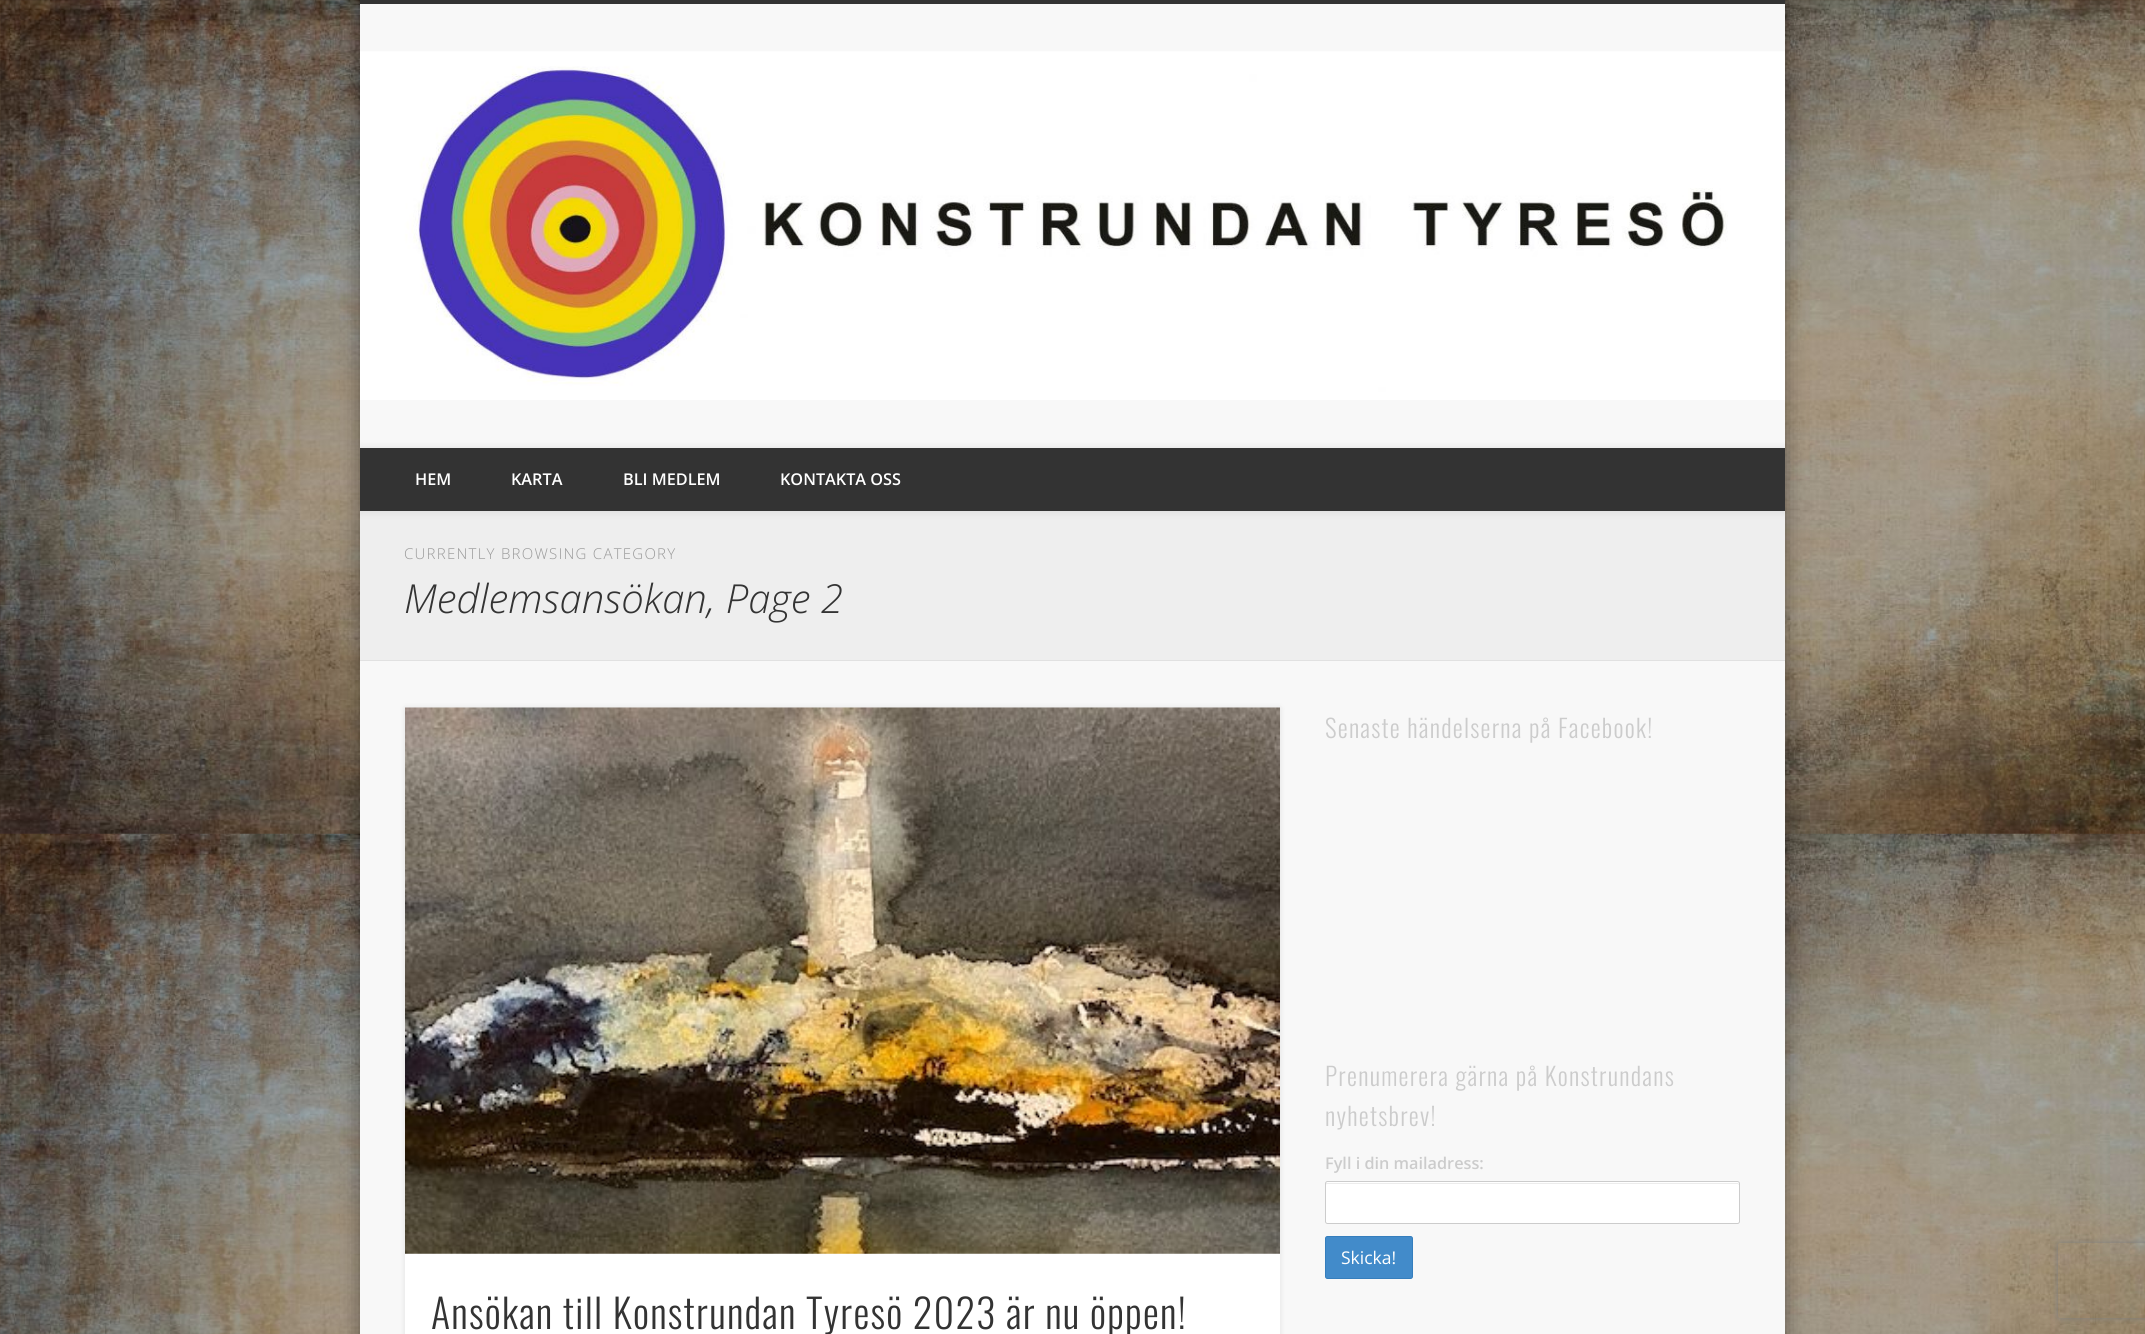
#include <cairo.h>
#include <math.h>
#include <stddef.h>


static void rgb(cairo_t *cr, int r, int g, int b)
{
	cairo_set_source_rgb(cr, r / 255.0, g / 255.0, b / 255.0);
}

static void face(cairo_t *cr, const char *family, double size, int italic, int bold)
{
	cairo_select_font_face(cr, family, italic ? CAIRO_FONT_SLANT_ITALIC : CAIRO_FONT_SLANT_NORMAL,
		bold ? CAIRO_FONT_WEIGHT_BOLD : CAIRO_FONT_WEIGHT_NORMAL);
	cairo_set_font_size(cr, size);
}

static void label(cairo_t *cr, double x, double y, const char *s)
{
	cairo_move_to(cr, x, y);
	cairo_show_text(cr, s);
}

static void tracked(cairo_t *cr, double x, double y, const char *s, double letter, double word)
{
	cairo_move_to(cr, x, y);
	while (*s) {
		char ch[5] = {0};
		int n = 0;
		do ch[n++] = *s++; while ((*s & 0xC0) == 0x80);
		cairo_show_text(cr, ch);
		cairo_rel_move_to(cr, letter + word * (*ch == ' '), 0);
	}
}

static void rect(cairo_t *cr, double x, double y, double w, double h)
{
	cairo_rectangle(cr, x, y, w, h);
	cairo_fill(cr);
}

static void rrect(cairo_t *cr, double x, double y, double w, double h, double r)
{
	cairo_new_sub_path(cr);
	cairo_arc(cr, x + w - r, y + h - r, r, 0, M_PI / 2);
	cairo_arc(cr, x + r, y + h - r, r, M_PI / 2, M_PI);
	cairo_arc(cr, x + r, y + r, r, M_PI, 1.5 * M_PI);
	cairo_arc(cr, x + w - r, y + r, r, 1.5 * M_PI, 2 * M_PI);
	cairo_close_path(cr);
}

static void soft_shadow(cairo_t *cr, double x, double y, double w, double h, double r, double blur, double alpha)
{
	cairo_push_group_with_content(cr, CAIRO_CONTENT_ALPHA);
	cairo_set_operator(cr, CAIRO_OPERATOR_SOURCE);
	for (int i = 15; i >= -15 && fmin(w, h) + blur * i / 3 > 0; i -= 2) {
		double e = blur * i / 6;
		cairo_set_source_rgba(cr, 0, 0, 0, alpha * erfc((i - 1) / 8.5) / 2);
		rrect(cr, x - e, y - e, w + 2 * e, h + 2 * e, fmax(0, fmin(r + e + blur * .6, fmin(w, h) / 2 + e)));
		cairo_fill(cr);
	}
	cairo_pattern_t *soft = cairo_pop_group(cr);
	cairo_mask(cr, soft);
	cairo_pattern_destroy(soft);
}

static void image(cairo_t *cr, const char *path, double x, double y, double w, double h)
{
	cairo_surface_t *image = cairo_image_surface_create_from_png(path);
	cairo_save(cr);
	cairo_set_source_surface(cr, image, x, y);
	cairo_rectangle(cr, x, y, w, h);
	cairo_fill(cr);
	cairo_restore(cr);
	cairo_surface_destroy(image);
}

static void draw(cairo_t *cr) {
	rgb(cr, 255, 255, 255);
	cairo_paint(cr);
	image(cr, "image0.png", 0, 0, 2145, 1334);
	rgb(cr, 0, 0, 0);
	soft_shadow(cr, 360, 0, 1425, 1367, 0, 11, 0.4);
	rgb(cr, 248, 248, 248);
	rect(cr, 360, 4, 1425, 1330);
	rgb(cr, 51, 51, 51);
	rect(cr, 360, 0, 1425, 4);
	image(cr, "image1.png", 360, 51, 1425, 349);
	rgb(cr, 238, 238, 238);
	rect(cr, 360, 511, 1425, 149);
	cairo_save(cr);
	cairo_rectangle(cr, 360, 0, 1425, 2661);
	cairo_clip(cr);
	rgb(cr, 0, 0, 0);
	soft_shadow(cr, 360, 448, 1425, 63, 0, 4.5, 0.1);
	cairo_restore(cr);
	rgb(cr, 51, 51, 51);
	rect(cr, 360, 448, 1425, 63);
	face(cr, "Open Sans SemiBold", 16.25, 0, 0);
	rgb(cr, 255, 255, 255);
	label(cr, 415, 485, "HEM");
	label(cr, 511, 485, "KARTA");
	label(cr, 623, 485, "BLI MEDLEM");
	label(cr, 780, 485, "KONTAKTA OSS");
	rgb(cr, 225, 225, 225);
	rect(cr, 360, 660, 1425, 1);
	face(cr, "Open Sans Light", 15, 0, 0);
	rgb(cr, 153, 153, 153);
	tracked(cr, 404, 559, "CURRENTLY BROWSING CATEGORY", 1.25, 0);
	face(cr, "Open Sans Light", 40, 1, 0);
	rgb(cr, 51, 51, 51);
	label(cr, 404, 613, "Medlemsansökan, Page 2");
	face(cr, "Oswald Light", 25, 0, 0);
	rgb(cr, 204, 204, 204);
	tracked(cr, 1325, 738, "Senaste händelserna på Facebook!", 1.25, 0);
	tracked(cr, 1325, 1086, "Prenumerera gärna på Konstrundans", 1.25, 0);
	tracked(cr, 1325, 1126, "nyhetsbrev!", 1.25, 0);
	face(cr, "Open Sans SemiBold", 16.25, 0, 0);
	label(cr, 1325, 1169, "Fyll i din mailadress:");
	rgb(cr, 255, 255, 255);
	rrect(cr, 1325, 1181, 415, 43, 2.5);
	cairo_fill(cr);
	rgb(cr, 236, 236, 236);
	cairo_new_path(cr);
	cairo_move_to(cr, 1328, 1184);
	cairo_line_to(cr, 1738, 1184);
	cairo_line_to(cr, 1739, 1185);
	cairo_line_to(cr, 1739, 1184);
	cairo_line_to(cr, 1738, 1183);
	cairo_line_to(cr, 1326, 1183);
	cairo_line_to(cr, 1326, 1185);
	cairo_curve_to(cr, 1326, 1184, 1327, 1184, 1328, 1184);
	cairo_close_path(cr);
	cairo_fill(cr);
	rrect(cr, 1325.5, 1181.5, 414, 42, 2);
	rgb(cr, 204, 204, 204);
	cairo_set_line_width(cr, 1);
	cairo_stroke(cr);
	rgb(cr, 66, 139, 202);
	rrect(cr, 1325.5, 1236.5, 87, 42, 2);
	cairo_fill_preserve(cr);
	rgb(cr, 53, 126, 189);
	cairo_stroke(cr);
	face(cr, "Open Sans", 17.5, 0, 0);
	rgb(cr, 255, 255, 255);
	label(cr, 1341, 1264, "Skicka!");
	rgb(cr, 0, 0, 0);
	soft_shadow(cr, 405, 708, 875, 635, 0, 3, 0.1);
	rgb(cr, 255, 255, 255);
	rect(cr, 405, 1253, 875, 81);
	image(cr, "image2.png", 405, 707, 875, 547);
	face(cr, "Oswald Light", 40, 0, 0);
	rgb(cr, 51, 51, 51);
	tracked(cr, 431, 1329, "Ansökan till Konstrundan Tyresö 2023 är nu öppen!", 1.25, 0);
	cairo_save(cr);
	cairo_set_fill_rule(cr, CAIRO_FILL_RULE_EVEN_ODD);
	cairo_new_path(cr);
	cairo_move_to(cr, 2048, 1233);
	cairo_line_to(cr, 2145, 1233);
	cairo_line_to(cr, 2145, 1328);
	cairo_line_to(cr, 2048, 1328);
	cairo_close_path(cr);
	cairo_move_to(cr, 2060.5, 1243);
	cairo_line_to(cr, 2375.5, 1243);
	cairo_curve_to(cr, 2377, 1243, 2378, 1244, 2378, 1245.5);
	cairo_line_to(cr, 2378, 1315.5);
	cairo_curve_to(cr, 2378, 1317, 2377, 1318, 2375.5, 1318);
	cairo_line_to(cr, 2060.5, 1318);
	cairo_curve_to(cr, 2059, 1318, 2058, 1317, 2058, 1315.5);
	cairo_line_to(cr, 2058, 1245.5);
	cairo_curve_to(cr, 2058, 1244, 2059, 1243, 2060.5, 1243);
	cairo_close_path(cr);
	cairo_clip(cr);
	rgb(cr, 128, 128, 128);
	soft_shadow(cr, 2058, 1243, 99, 75, 2.5, 3, 1);
	cairo_restore(cr);
}

int main(void) {
	cairo_surface_t *surface = cairo_image_surface_create(CAIRO_FORMAT_RGB24, 2145, 1334);
	cairo_t *cr = cairo_create(surface);
	cairo_font_options_t *options = cairo_font_options_create();
	cairo_font_options_set_hint_metrics(options, CAIRO_HINT_METRICS_OFF);
	cairo_font_options_set_hint_style(options, CAIRO_HINT_STYLE_NONE);
	cairo_set_font_options(cr, options);
	cairo_set_miter_limit(cr, 4);
	draw(cr);
	cairo_surface_write_to_png(surface, "render.png");
	cairo_font_options_destroy(options);
	cairo_destroy(cr);
	cairo_surface_destroy(surface);
	return 0;
}
